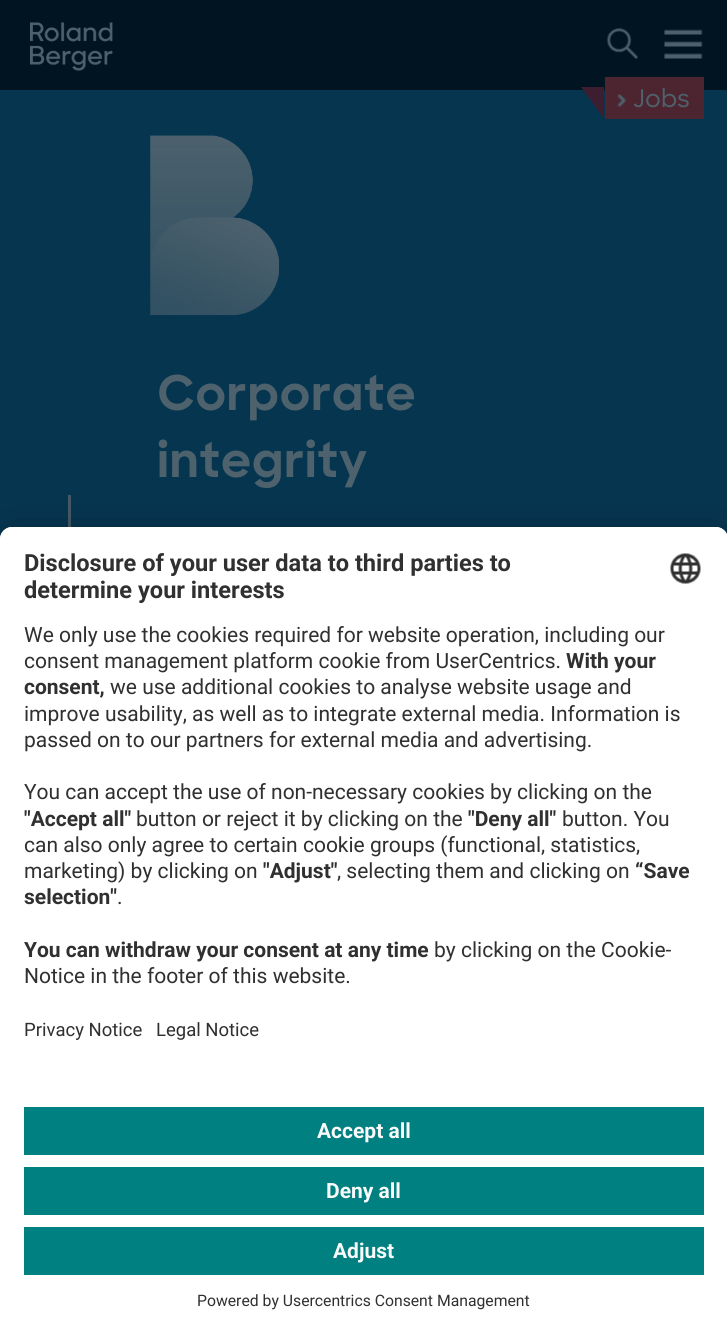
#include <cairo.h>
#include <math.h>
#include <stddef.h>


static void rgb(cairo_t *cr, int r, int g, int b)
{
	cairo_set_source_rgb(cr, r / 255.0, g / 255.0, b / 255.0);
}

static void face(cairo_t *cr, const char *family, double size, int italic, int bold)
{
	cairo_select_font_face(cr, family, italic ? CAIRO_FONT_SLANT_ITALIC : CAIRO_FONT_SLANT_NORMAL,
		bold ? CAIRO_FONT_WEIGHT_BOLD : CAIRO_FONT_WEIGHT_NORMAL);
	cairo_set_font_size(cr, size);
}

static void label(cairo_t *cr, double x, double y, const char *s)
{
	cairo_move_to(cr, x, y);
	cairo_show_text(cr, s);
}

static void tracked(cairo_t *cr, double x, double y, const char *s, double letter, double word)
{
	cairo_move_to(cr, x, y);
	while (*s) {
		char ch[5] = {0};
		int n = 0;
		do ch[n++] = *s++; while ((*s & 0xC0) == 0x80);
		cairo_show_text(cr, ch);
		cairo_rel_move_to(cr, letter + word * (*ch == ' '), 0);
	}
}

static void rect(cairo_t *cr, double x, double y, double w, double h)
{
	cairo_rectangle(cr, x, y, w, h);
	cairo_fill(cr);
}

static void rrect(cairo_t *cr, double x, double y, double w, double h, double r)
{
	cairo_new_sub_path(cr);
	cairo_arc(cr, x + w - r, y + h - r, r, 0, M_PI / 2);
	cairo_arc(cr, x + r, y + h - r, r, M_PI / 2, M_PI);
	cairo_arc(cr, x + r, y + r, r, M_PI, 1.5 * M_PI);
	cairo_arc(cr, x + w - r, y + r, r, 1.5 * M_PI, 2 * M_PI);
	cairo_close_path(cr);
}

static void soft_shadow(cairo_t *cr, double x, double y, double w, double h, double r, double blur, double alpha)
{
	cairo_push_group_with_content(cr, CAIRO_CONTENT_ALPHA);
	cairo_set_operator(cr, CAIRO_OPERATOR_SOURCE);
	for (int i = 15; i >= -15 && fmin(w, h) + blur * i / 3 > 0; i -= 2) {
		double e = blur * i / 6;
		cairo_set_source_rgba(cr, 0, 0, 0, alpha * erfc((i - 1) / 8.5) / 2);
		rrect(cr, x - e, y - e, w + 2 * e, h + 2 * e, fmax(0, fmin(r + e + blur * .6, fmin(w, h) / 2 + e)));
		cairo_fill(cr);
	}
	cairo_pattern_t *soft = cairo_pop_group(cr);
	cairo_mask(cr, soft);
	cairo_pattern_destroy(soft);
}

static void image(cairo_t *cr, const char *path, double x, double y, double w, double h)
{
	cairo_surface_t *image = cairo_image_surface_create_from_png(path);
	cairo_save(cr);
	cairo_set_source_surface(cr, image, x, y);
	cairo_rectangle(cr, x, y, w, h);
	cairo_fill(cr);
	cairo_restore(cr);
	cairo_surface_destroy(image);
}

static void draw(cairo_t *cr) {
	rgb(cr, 6, 53, 80);
	cairo_paint(cr);
	rgb(cr, 0, 21, 33);
	rect(cr, 0, 0, 727, 90);
	image(cr, "image0.png", 30, 22, 83, 49);
	image(cr, "image1.png", 607, 28, 31, 31);
	image(cr, "image2.png", 664, 29, 39, 30);
	rgb(cr, 77, 37, 48);
	rect(cr, 605, 77, 99, 42);
	rgb(cr, 61, 30, 48);
	cairo_new_path(cr);
	cairo_move_to(cr, 604, 87);
	cairo_line_to(cr, 604, 118.5);
	cairo_line_to(cr, 581, 87);
	cairo_close_path(cr);
	cairo_fill(cr);
	image(cr, "image3.png", 617, 94, 9, 13);
	face(cr, "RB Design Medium", 24, 0, 0);
	rgb(cr, 77, 98, 109);
	label(cr, 633, 107, "Jobs");
	image(cr, "image4.png", 150, 135, 129, 181);
	face(cr, "RB Design", 48, 0, 1);
	tracked(cr, 157, 410, "Corporate", 0.5, 0);
	tracked(cr, 157, 477, "integrity", 0.5, 0);
	rgb(cr, 69, 90, 102);
	rect(cr, 68, 495, 3, 32);
	rgb(cr, 0, 0, 0);
	soft_shadow(cr, 0, 557, 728, 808, 12, 21, 0.3);
	soft_shadow(cr, 0, 534, 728, 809, 12, 19.5, 0.22);
	rgb(cr, 255, 255, 255);
	cairo_new_path(cr);
	cairo_move_to(cr, 12, 527);
	cairo_line_to(cr, 716, 527);
	cairo_curve_to(cr, 722.5, 527, 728, 532.5, 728, 539);
	cairo_line_to(cr, 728, 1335);
	cairo_line_to(cr, 0, 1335);
	cairo_line_to(cr, 0, 539);
	cairo_curve_to(cr, 0, 532.5, 5.5, 527, 12, 527);
	cairo_close_path(cr);
	cairo_fill(cr);
	cairo_new_path(cr);
	cairo_move_to(cr, 12, 527);
	cairo_line_to(cr, 716, 527);
	cairo_curve_to(cr, 722.5, 527, 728, 532.5, 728, 539);
	cairo_line_to(cr, 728, 1089);
	cairo_line_to(cr, 0, 1089);
	cairo_line_to(cr, 0, 539);
	cairo_curve_to(cr, 0, 532.5, 5.5, 527, 12, 527);
	cairo_close_path(cr);
	cairo_fill(cr);
	face(cr, "Roboto", 23.6, 0, 1);
	rgb(cr, 48, 48, 48);
	label(cr, 24, 571, "Disclosure of your user data to third parties to");
	label(cr, 24, 598, "determine your interests");
	image(cr, "image5.png", 670, 553, 31, 31);
	face(cr, "Roboto", 21, 0, 0);
	label(cr, 24, 642, "We only use the cookies required for website operation, including our");
	label(cr, 24, 668, "consent management platform cookie from UserCentrics.");
	face(cr, "Roboto", 21, 0, 1);
	label(cr, 566, 668, "With your");
	label(cr, 24, 694, "consent,");
	face(cr, "Roboto", 21, 0, 0);
	label(cr, 110, 694, "we use additional cookies to analyse website usage and");
	label(cr, 24, 721, "improve usability, as well as to integrate external media. Information is");
	label(cr, 24, 747, "passed on to our partners for external media and advertising.");
	label(cr, 24, 799, "You can accept the use of non-necessary cookies by clicking on the");
	face(cr, "Roboto", 21, 0, 1);
	label(cr, 24, 826, "\"Accept all\"");
	face(cr, "Roboto", 21, 0, 0);
	label(cr, 136, 826, "button or reject it by clicking on the");
	face(cr, "Roboto", 21, 0, 1);
	label(cr, 468, 826, "\"Deny all\"");
	face(cr, "Roboto", 21, 0, 0);
	label(cr, 562, 826, "button. You");
	label(cr, 24, 852, "can also only agree to certain cookie groups (functional, statistics,");
	label(cr, 24, 878, "marketing) by clicking on");
	face(cr, "Roboto", 21, 0, 1);
	label(cr, 263, 878, "\"Adjust\"");
	face(cr, "Roboto", 21, 0, 0);
	label(cr, 337, 878, ", selecting them and clicking on");
	face(cr, "Roboto", 21, 0, 1);
	label(cr, 635, 878, "“Save");
	label(cr, 24, 904, "selection\"");
	face(cr, "Roboto", 21, 0, 0);
	label(cr, 117, 904, ".");
	face(cr, "Roboto", 21, 0, 1);
	label(cr, 24, 957, "You can withdraw your consent at any time");
	face(cr, "Roboto", 21, 0, 0);
	label(cr, 434, 957, "by clicking on the Cookie-");
	label(cr, 24, 983, "Notice in the footer of this website.");
	face(cr, "Roboto", 18.5, 0, 0);
	label(cr, 24, 1036, "Privacy Notice");
	label(cr, 156, 1036, "Legal Notice");
	rgb(cr, 0, 128, 128);
	rect(cr, 24, 1107, 680, 48);
	face(cr, "Roboto", 21, 0, 1);
	rgb(cr, 250, 250, 250);
	label(cr, 317, 1138, "Accept all");
	rgb(cr, 0, 128, 128);
	rect(cr, 24, 1167, 680, 48);
	rgb(cr, 250, 250, 250);
	label(cr, 326, 1198, "Deny all");
	rgb(cr, 0, 128, 128);
	rect(cr, 24, 1227, 680, 48);
	rgb(cr, 250, 250, 250);
	label(cr, 333, 1258, "Adjust");
	face(cr, "Roboto", 15.75, 0, 0);
	rgb(cr, 48, 48, 48);
	label(cr, 197, 1306, "Powered by Usercentrics Consent Management");
}

int main(void) {
	cairo_surface_t *surface = cairo_image_surface_create(CAIRO_FORMAT_RGB24, 727, 1334);
	cairo_t *cr = cairo_create(surface);
	cairo_font_options_t *options = cairo_font_options_create();
	cairo_font_options_set_hint_metrics(options, CAIRO_HINT_METRICS_OFF);
	cairo_font_options_set_hint_style(options, CAIRO_HINT_STYLE_NONE);
	cairo_set_font_options(cr, options);
	cairo_set_miter_limit(cr, 4);
	draw(cr);
	cairo_surface_write_to_png(surface, "render.png");
	cairo_font_options_destroy(options);
	cairo_destroy(cr);
	cairo_surface_destroy(surface);
	return 0;
}
